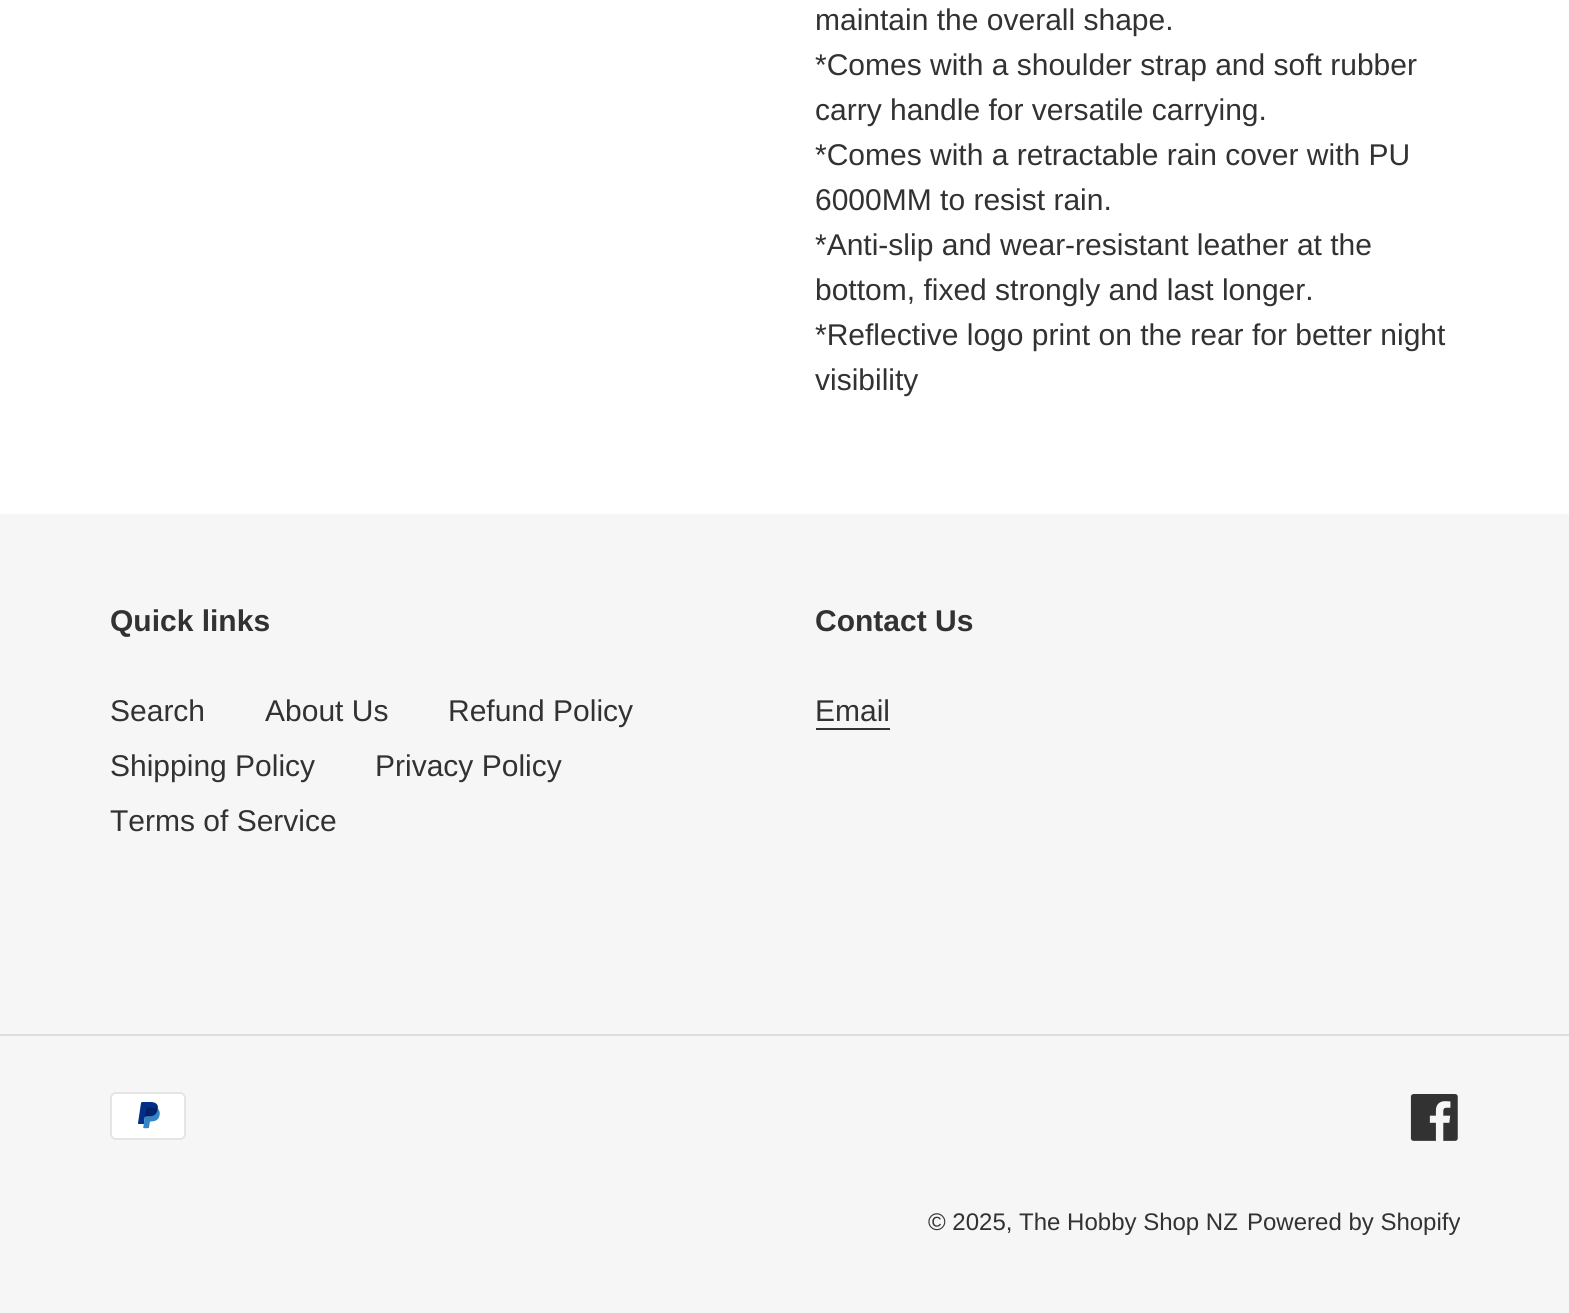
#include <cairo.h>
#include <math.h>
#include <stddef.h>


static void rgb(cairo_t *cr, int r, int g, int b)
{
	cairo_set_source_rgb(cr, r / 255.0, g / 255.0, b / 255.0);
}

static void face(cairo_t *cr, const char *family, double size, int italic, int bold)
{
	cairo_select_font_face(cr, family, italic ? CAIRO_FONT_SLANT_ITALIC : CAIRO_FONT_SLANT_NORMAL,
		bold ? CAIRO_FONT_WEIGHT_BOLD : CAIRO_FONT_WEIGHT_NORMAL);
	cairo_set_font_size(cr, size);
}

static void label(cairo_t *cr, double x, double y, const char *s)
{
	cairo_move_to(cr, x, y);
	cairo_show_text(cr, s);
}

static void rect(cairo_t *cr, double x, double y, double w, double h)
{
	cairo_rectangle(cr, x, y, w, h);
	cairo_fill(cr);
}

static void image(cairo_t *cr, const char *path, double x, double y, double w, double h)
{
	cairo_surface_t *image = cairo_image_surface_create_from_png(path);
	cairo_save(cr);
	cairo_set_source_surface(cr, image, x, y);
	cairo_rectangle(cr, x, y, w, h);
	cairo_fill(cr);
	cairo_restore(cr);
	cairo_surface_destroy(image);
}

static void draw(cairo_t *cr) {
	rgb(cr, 255, 255, 255);
	cairo_paint(cr);
	face(cr, "Liberation Sans", 30, 0, 0);
	rgb(cr, 51, 50, 50);
	label(cr, 815, 30, "maintain the overall shape.");
	label(cr, 815, 75, "*Comes with a shoulder strap and soft rubber");
	label(cr, 815, 120, "carry handle for versatile carrying.");
	label(cr, 815, 165, "*Comes with a retractable rain cover with PU");
	label(cr, 815, 210, "6000MM to resist rain.");
	label(cr, 815, 255, "*Anti-slip and wear-resistant leather at the");
	label(cr, 815, 300, "bottom, fixed strongly and last longer.");
	label(cr, 815, 345, "*Reflective logo print on the rear for better night");
	label(cr, 815, 390, "visibility");
	rgb(cr, 246, 246, 246);
	rect(cr, 0, 514, 1569, 799);
	face(cr, "Liberation Sans", 30, 0, 1);
	rgb(cr, 51, 50, 50);
	label(cr, 110, 631, "Quick links");
	face(cr, "Liberation Sans", 30, 0, 0);
	label(cr, 110, 721, "Search");
	label(cr, 265, 721, "About Us");
	label(cr, 448, 721, "Refund Policy");
	label(cr, 110, 776, "Shipping Policy");
	label(cr, 375, 776, "Privacy Policy");
	label(cr, 110, 831, "Terms of Service");
	face(cr, "Liberation Sans", 30, 0, 1);
	label(cr, 815, 631, "Contact Us");
	face(cr, "Liberation Sans", 30, 0, 0);
	label(cr, 815, 721, "Email");
	rect(cr, 816, 728, 74, 2);
	rgb(cr, 221, 221, 221);
	rect(cr, 0, 1034, 1569, 2);
	image(cr, "image0.png", 110, 1092, 76, 48);
	image(cr, "image1.png", 1410, 1094, 48, 47);
	face(cr, "Liberation Sans", 24, 0, 0);
	rgb(cr, 51, 50, 50);
	label(cr, 928, 1230, "© 2025, The Hobby Shop NZ");
	label(cr, 1247, 1230, "Powered by Shopify");
}

int main(void) {
	cairo_surface_t *surface = cairo_image_surface_create(CAIRO_FORMAT_RGB24, 1569, 1313);
	cairo_t *cr = cairo_create(surface);
	cairo_font_options_t *options = cairo_font_options_create();
	cairo_font_options_set_hint_metrics(options, CAIRO_HINT_METRICS_OFF);
	cairo_font_options_set_hint_style(options, CAIRO_HINT_STYLE_NONE);
	cairo_set_font_options(cr, options);
	cairo_set_miter_limit(cr, 4);
	draw(cr);
	cairo_surface_write_to_png(surface, "render.png");
	cairo_font_options_destroy(options);
	cairo_destroy(cr);
	cairo_surface_destroy(surface);
	return 0;
}
